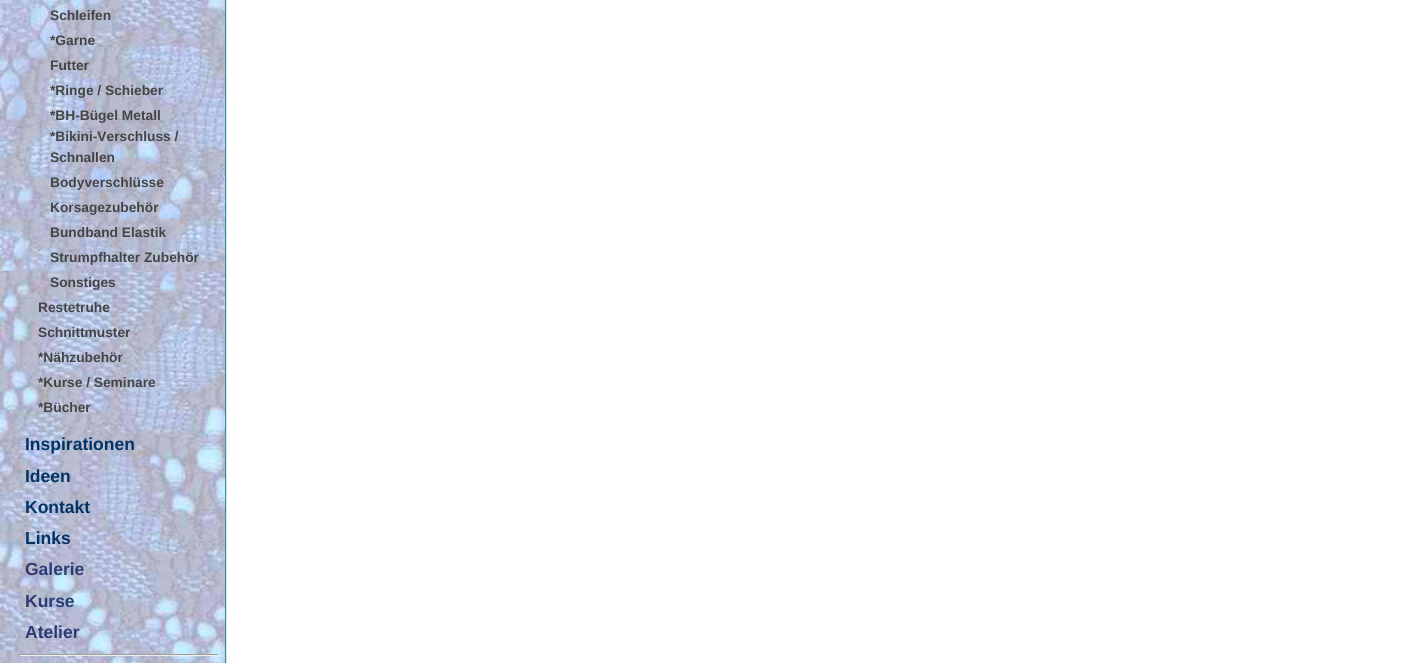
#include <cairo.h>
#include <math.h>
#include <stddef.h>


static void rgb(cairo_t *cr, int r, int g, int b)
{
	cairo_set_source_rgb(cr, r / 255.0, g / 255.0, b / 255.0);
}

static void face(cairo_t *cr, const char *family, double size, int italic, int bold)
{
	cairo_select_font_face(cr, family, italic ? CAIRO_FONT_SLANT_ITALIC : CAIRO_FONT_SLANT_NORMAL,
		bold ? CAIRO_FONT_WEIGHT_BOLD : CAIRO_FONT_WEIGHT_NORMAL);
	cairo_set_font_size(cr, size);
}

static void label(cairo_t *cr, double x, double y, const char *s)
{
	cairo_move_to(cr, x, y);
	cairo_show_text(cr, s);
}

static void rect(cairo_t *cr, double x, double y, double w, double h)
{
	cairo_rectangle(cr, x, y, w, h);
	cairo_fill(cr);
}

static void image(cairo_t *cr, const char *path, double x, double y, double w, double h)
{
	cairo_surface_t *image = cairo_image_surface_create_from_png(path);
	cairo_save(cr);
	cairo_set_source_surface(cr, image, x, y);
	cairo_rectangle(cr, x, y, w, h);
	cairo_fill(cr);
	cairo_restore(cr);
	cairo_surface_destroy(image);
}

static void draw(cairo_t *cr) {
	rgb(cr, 255, 255, 255);
	cairo_paint(cr);
	image(cr, "image0.png", 0, 0, 225, 663);
	face(cr, "Liberation Sans", 13.75, 0, 1);
	rgb(cr, 68, 68, 68);
	label(cr, 50, 20, "Schleifen");
	label(cr, 50, 45, "*Garne");
	label(cr, 50, 70, "Futter");
	label(cr, 50, 95, "*Ringe / Schieber");
	label(cr, 50, 120, "*BH-Bügel Metall");
	label(cr, 50, 141, "*Bikini-Verschluss /");
	label(cr, 50, 162, "Schnallen");
	label(cr, 50, 187, "Bodyverschlüsse");
	label(cr, 50, 212, "Korsagezubehör");
	label(cr, 50, 237, "Bundband Elastik");
	label(cr, 50, 262, "Strumpfhalter Zubehör");
	label(cr, 50, 287, "Sonstiges");
	label(cr, 38, 312, "Restetruhe");
	label(cr, 38, 337, "Schnittmuster");
	label(cr, 38, 362, "*Nähzubehör");
	label(cr, 38, 387, "*Kurse / Seminare");
	label(cr, 38, 412, "*Bücher");
	face(cr, "Liberation Sans", 17.5, 0, 1);
	rgb(cr, 0, 51, 102);
	label(cr, 25, 450, "Inspirationen");
	label(cr, 25, 482, "Ideen");
	label(cr, 25, 513, "Kontakt");
	label(cr, 25, 544, "Links");
	rgb(cr, 43, 60, 116);
	label(cr, 25, 575, "Galerie");
	label(cr, 25, 607, "Kurse");
	label(cr, 25, 638, "Atelier");
	rgb(cr, 159, 159, 159);
	rect(cr, 19, 654, 200, 1);
	rgb(cr, 238, 238, 238);
	rect(cr, 218, 654, 1, 3);
	rect(cr, 19, 655, 200, 1);
	rgb(cr, 159, 159, 159);
	rect(cr, 19, 654, 1, 3);
	image(cr, "image1.png", 225, 0, 2, 663);
}

int main(void) {
	cairo_surface_t *surface = cairo_image_surface_create(CAIRO_FORMAT_RGB24, 1418, 663);
	cairo_t *cr = cairo_create(surface);
	cairo_font_options_t *options = cairo_font_options_create();
	cairo_font_options_set_hint_metrics(options, CAIRO_HINT_METRICS_OFF);
	cairo_font_options_set_hint_style(options, CAIRO_HINT_STYLE_NONE);
	cairo_set_font_options(cr, options);
	cairo_set_miter_limit(cr, 4);
	draw(cr);
	cairo_surface_write_to_png(surface, "render.png");
	cairo_font_options_destroy(options);
	cairo_destroy(cr);
	cairo_surface_destroy(surface);
	return 0;
}
